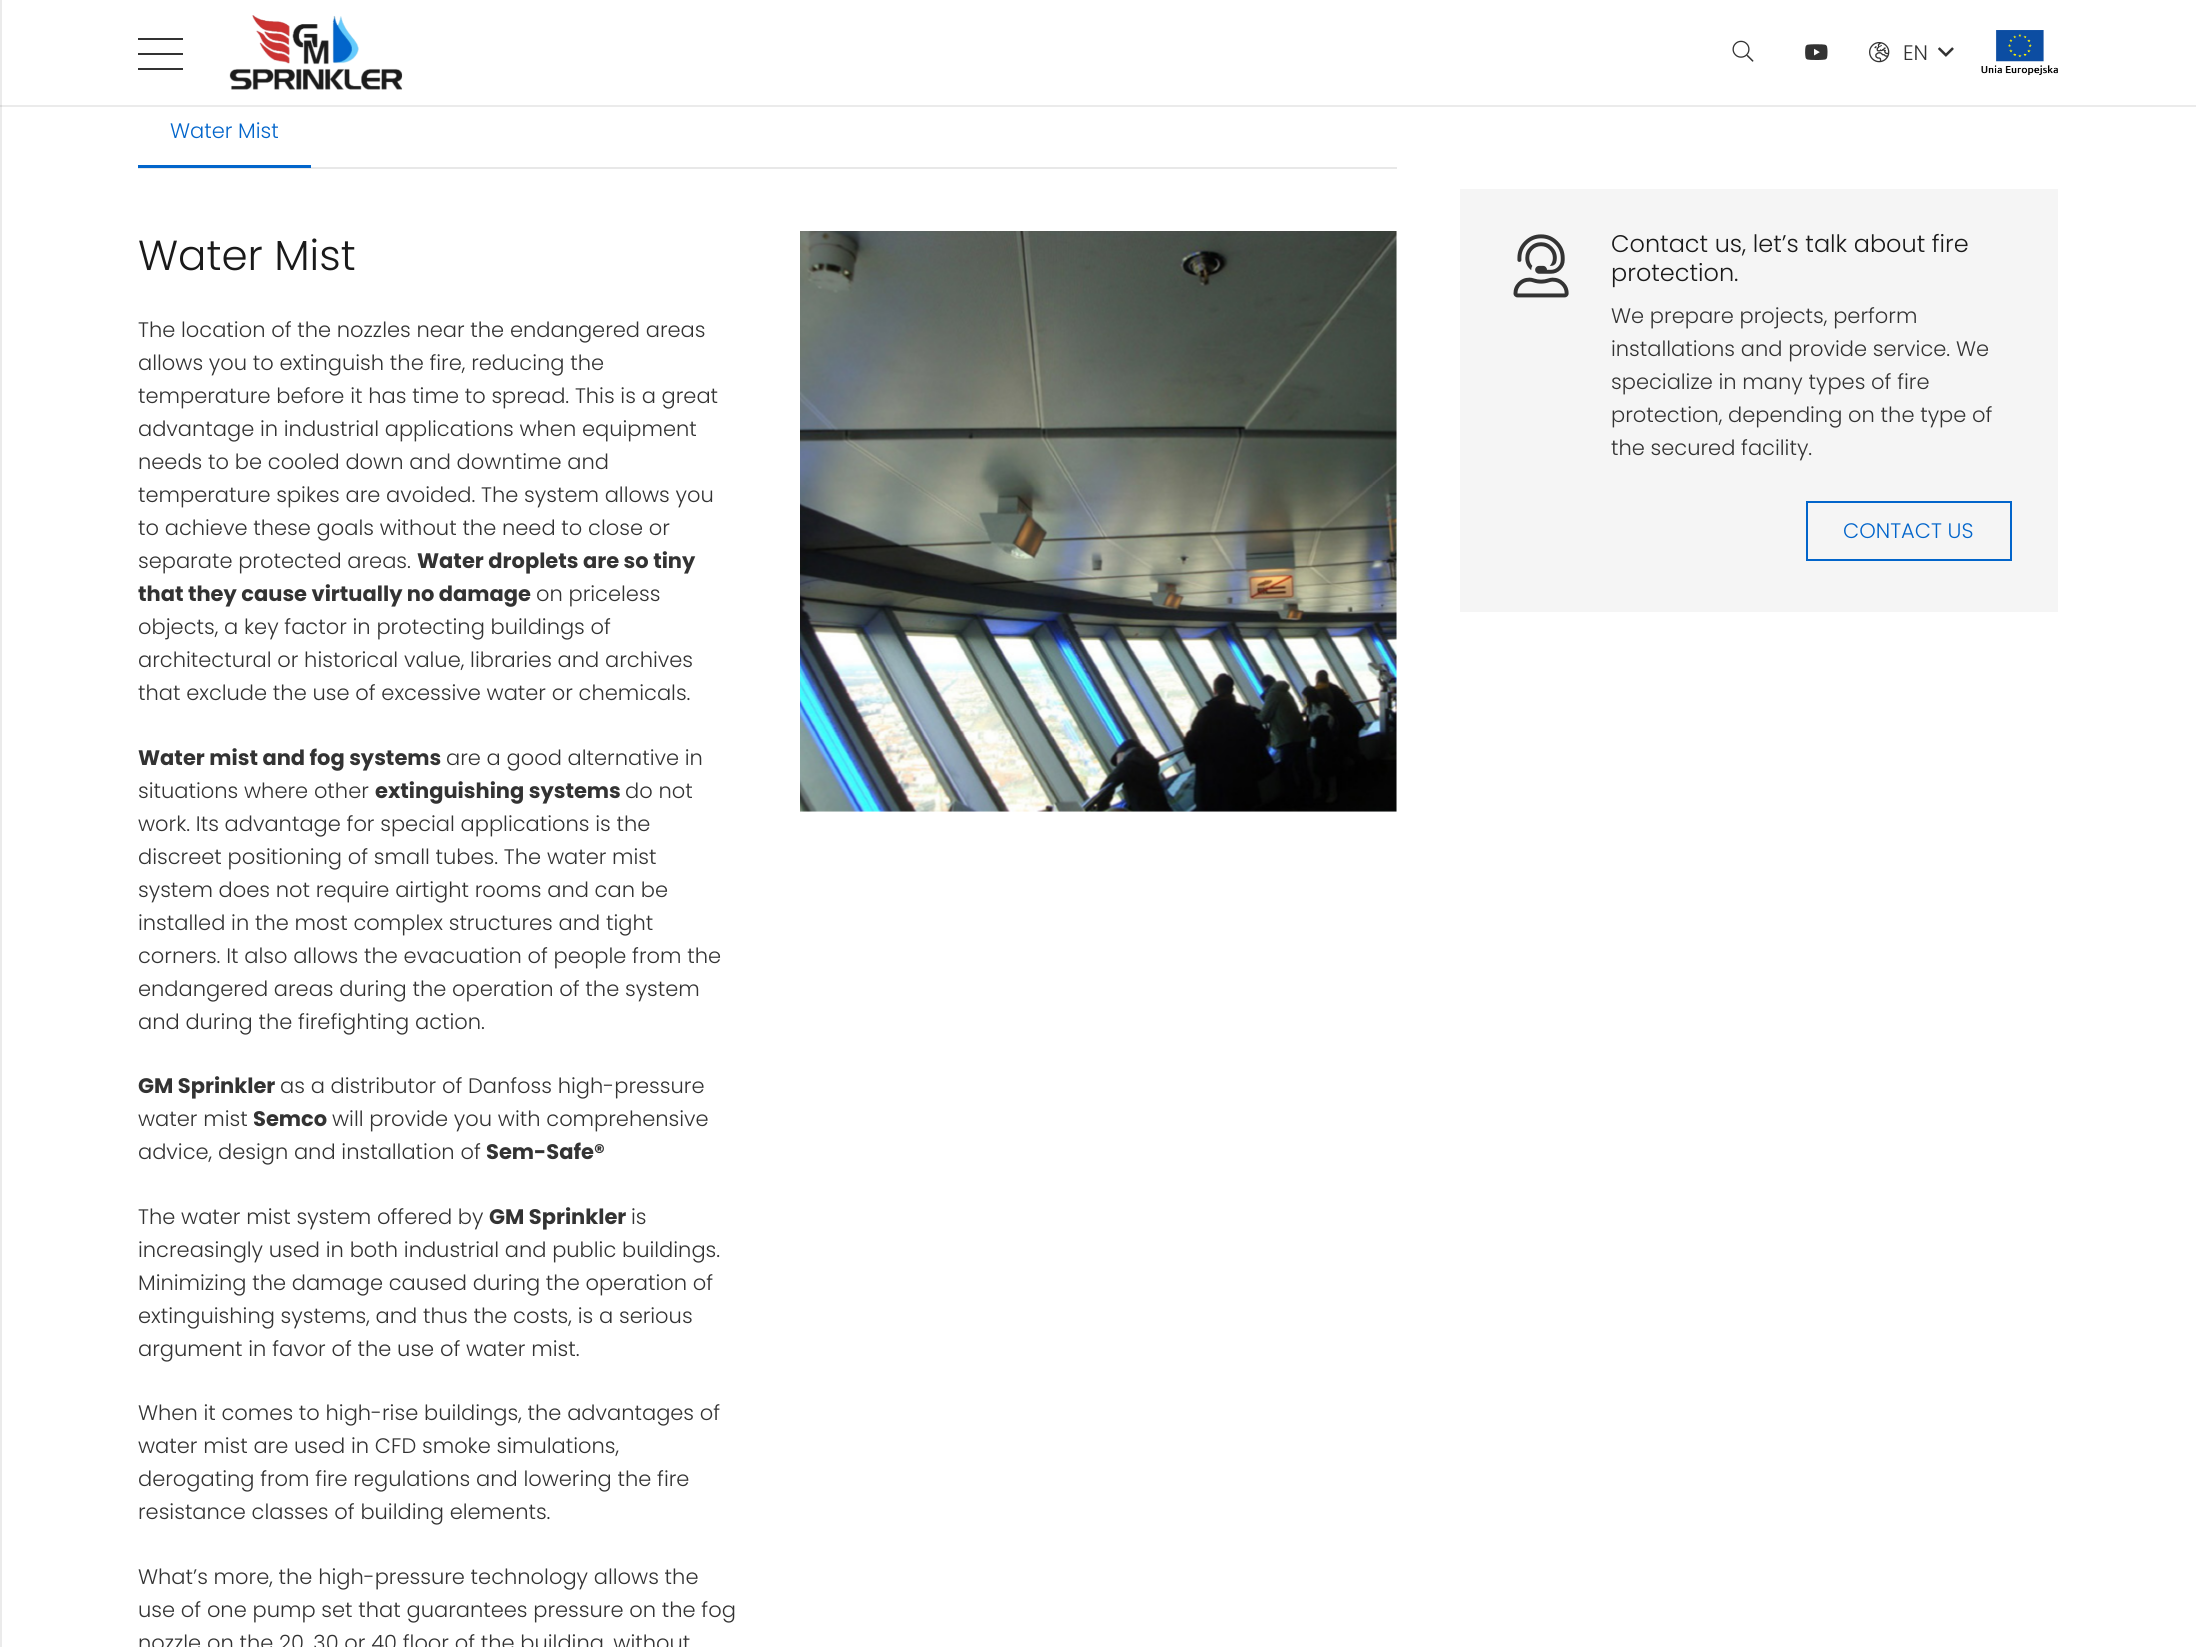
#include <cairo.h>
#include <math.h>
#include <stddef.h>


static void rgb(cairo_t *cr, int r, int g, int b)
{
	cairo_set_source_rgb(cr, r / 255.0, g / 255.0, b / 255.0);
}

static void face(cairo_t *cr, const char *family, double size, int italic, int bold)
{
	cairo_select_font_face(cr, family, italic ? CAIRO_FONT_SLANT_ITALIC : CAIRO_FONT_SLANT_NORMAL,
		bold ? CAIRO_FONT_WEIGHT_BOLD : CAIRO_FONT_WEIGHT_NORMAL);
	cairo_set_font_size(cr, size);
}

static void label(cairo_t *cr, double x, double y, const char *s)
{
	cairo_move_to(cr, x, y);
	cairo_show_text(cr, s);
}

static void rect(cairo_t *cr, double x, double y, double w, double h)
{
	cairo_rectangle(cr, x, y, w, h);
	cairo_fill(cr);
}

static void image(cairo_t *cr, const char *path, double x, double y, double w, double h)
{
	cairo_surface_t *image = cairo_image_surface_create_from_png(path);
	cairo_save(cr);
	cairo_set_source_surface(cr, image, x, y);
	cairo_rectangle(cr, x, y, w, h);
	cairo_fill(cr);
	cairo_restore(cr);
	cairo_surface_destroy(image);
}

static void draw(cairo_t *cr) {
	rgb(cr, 255, 255, 255);
	cairo_paint(cr);
	rgb(cr, 235, 235, 235);
	rect(cr, 0, 107, 2, 1540);
	rect(cr, 0, 105, 2196, 2);
	rgb(cr, 216, 216, 216);
	rect(cr, 0, 105, 2, 2);
	rgb(cr, 235, 235, 235);
	rect(cr, 0, 0, 2, 105);
	rgb(cr, 51, 51, 51);
	rect(cr, 138, 53, 45, 2);
	rect(cr, 138, 38, 45, 2);
	rect(cr, 138, 68, 45, 2);
	image(cr, "image0.png", 229, 15, 174, 75);
	image(cr, "image1.png", 1732, 40, 22, 22);
	image(cr, "image2.png", 1805, 44, 23, 16);
	image(cr, "image3.png", 1869, 42, 21, 21);
	face(cr, "Poppins Light", 21, 0, 0);
	label(cr, 1903, 60, "EN");
	image(cr, "image4.png", 1938, 47, 16, 10);
	image(cr, "image5.png", 1981, 30, 77, 45);
	rgb(cr, 2, 101, 203);
	label(cr, 170, 138, "Water Mist");
	rgb(cr, 232, 232, 232);
	rect(cr, 138, 167, 1259, 2);
	rgb(cr, 2, 101, 203);
	rect(cr, 138, 165, 173, 3);
	face(cr, "Poppins Light", 42, 0, 0);
	rgb(cr, 26, 26, 26);
	label(cr, 138, 270, "Water Mist");
	face(cr, "Poppins Light", 21, 0, 0);
	rgb(cr, 51, 51, 51);
	label(cr, 138, 337, "The location of the nozzles near the endangered areas");
	label(cr, 138, 370, "allows you to extinguish the fire, reducing the");
	label(cr, 138, 403, "temperature before it has time to spread. This is a great");
	label(cr, 138, 436, "advantage in industrial applications when equipment");
	label(cr, 138, 469, "needs to be cooled down and downtime and");
	label(cr, 138, 502, "temperature spikes are avoided. The system allows you");
	label(cr, 138, 535, "to achieve these goals without the need to close or");
	label(cr, 138, 568, "separate protected areas.");
	face(cr, "Poppins", 21, 0, 1);
	label(cr, 417, 568, "Water droplets are so tiny");
	label(cr, 138, 601, "that they cause virtually no damage");
	face(cr, "Poppins Light", 21, 0, 0);
	label(cr, 536, 601, "on priceless");
	label(cr, 138, 634, "objects, a key factor in protecting buildings of");
	label(cr, 138, 667, "architectural or historical value, libraries and archives");
	label(cr, 138, 700, "that exclude the use of excessive water or chemicals.");
	face(cr, "Poppins", 21, 0, 1);
	label(cr, 138, 765, "Water mist and fog systems");
	face(cr, "Poppins Light", 21, 0, 0);
	label(cr, 446, 765, "are a good alternative in");
	label(cr, 138, 798, "situations where other");
	face(cr, "Poppins", 21, 0, 1);
	label(cr, 375, 798, "extinguishing systems");
	face(cr, "Poppins Light", 21, 0, 0);
	label(cr, 625, 798, "do not");
	label(cr, 138, 831, "work. Its advantage for special applications is the");
	label(cr, 138, 864, "discreet positioning of small tubes. The water mist");
	label(cr, 138, 897, "system does not require airtight rooms and can be");
	label(cr, 138, 930, "installed in the most complex structures and tight");
	label(cr, 138, 963, "corners. It also allows the evacuation of people from the");
	label(cr, 138, 996, "endangered areas during the operation of the system");
	label(cr, 138, 1029, "and during the firefighting action.");
	face(cr, "Poppins", 21, 0, 1);
	label(cr, 138, 1093, "GM Sprinkler");
	face(cr, "Poppins Light", 21, 0, 0);
	label(cr, 280, 1093, "as a distributor of Danfoss high-pressure");
	label(cr, 138, 1126, "water mist");
	face(cr, "Poppins", 21, 0, 1);
	label(cr, 253, 1126, "Semco");
	face(cr, "Poppins Light", 21, 0, 0);
	label(cr, 332, 1126, "will provide you with comprehensive");
	label(cr, 138, 1159, "advice, design and installation of");
	face(cr, "Poppins", 21, 0, 1);
	label(cr, 486, 1159, "Sem-Safe®");
	face(cr, "Poppins Light", 21, 0, 0);
	label(cr, 138, 1224, "The water mist system offered by");
	face(cr, "Poppins", 21, 0, 1);
	label(cr, 489, 1224, "GM Sprinkler");
	face(cr, "Poppins Light", 21, 0, 0);
	label(cr, 631, 1224, "is");
	label(cr, 138, 1257, "increasingly used in both industrial and public buildings.");
	label(cr, 138, 1290, "Minimizing the damage caused during the operation of");
	label(cr, 138, 1323, "extinguishing systems, and thus the costs, is a serious");
	label(cr, 138, 1356, "argument in favor of the use of water mist.");
	label(cr, 138, 1420, "When it comes to high-rise buildings, the advantages of");
	label(cr, 138, 1453, "water mist are used in CFD smoke simulations,");
	label(cr, 138, 1486, "derogating from fire regulations and lowering the fire");
	label(cr, 138, 1519, "resistance classes of building elements.");
	label(cr, 138, 1584, "What’s more, the high-pressure technology allows the");
	label(cr, 138, 1617, "use of one pump set that guarantees pressure on the fog");
	label(cr, 138, 1650, "nozzle on the 20, 30 or 40 floor of the building, without");
	image(cr, "image6.png", 800, 231, 597, 581);
	rgb(cr, 245, 245, 245);
	rect(cr, 1460, 189, 598, 423);
	image(cr, "image7.png", 1513, 234, 56, 64);
	face(cr, "Poppins Light", 24, 0, 0);
	rgb(cr, 26, 26, 26);
	label(cr, 1611, 252, "Contact us, let’s talk about fire");
	label(cr, 1611, 281, "protection.");
	face(cr, "Poppins Light", 21, 0, 0);
	rgb(cr, 51, 51, 51);
	label(cr, 1611, 323, "We prepare projects, perform");
	label(cr, 1611, 356, "installations and provide service. We");
	label(cr, 1611, 389, "specialize in many types of fire");
	label(cr, 1611, 422, "protection, depending on the type of");
	label(cr, 1611, 455, "the secured facility.");
	cairo_rectangle(cr, 1807, 502, 204, 58);
	rgb(cr, 2, 101, 203);
	cairo_stroke(cr);
	label(cr, 1843, 538, "CONTACT US");
}

int main(void) {
	cairo_surface_t *surface = cairo_image_surface_create(CAIRO_FORMAT_RGB24, 2196, 1647);
	cairo_t *cr = cairo_create(surface);
	cairo_font_options_t *options = cairo_font_options_create();
	cairo_font_options_set_hint_metrics(options, CAIRO_HINT_METRICS_OFF);
	cairo_font_options_set_hint_style(options, CAIRO_HINT_STYLE_NONE);
	cairo_set_font_options(cr, options);
	cairo_set_miter_limit(cr, 4);
	draw(cr);
	cairo_surface_write_to_png(surface, "render.png");
	cairo_font_options_destroy(options);
	cairo_destroy(cr);
	cairo_surface_destroy(surface);
	return 0;
}
